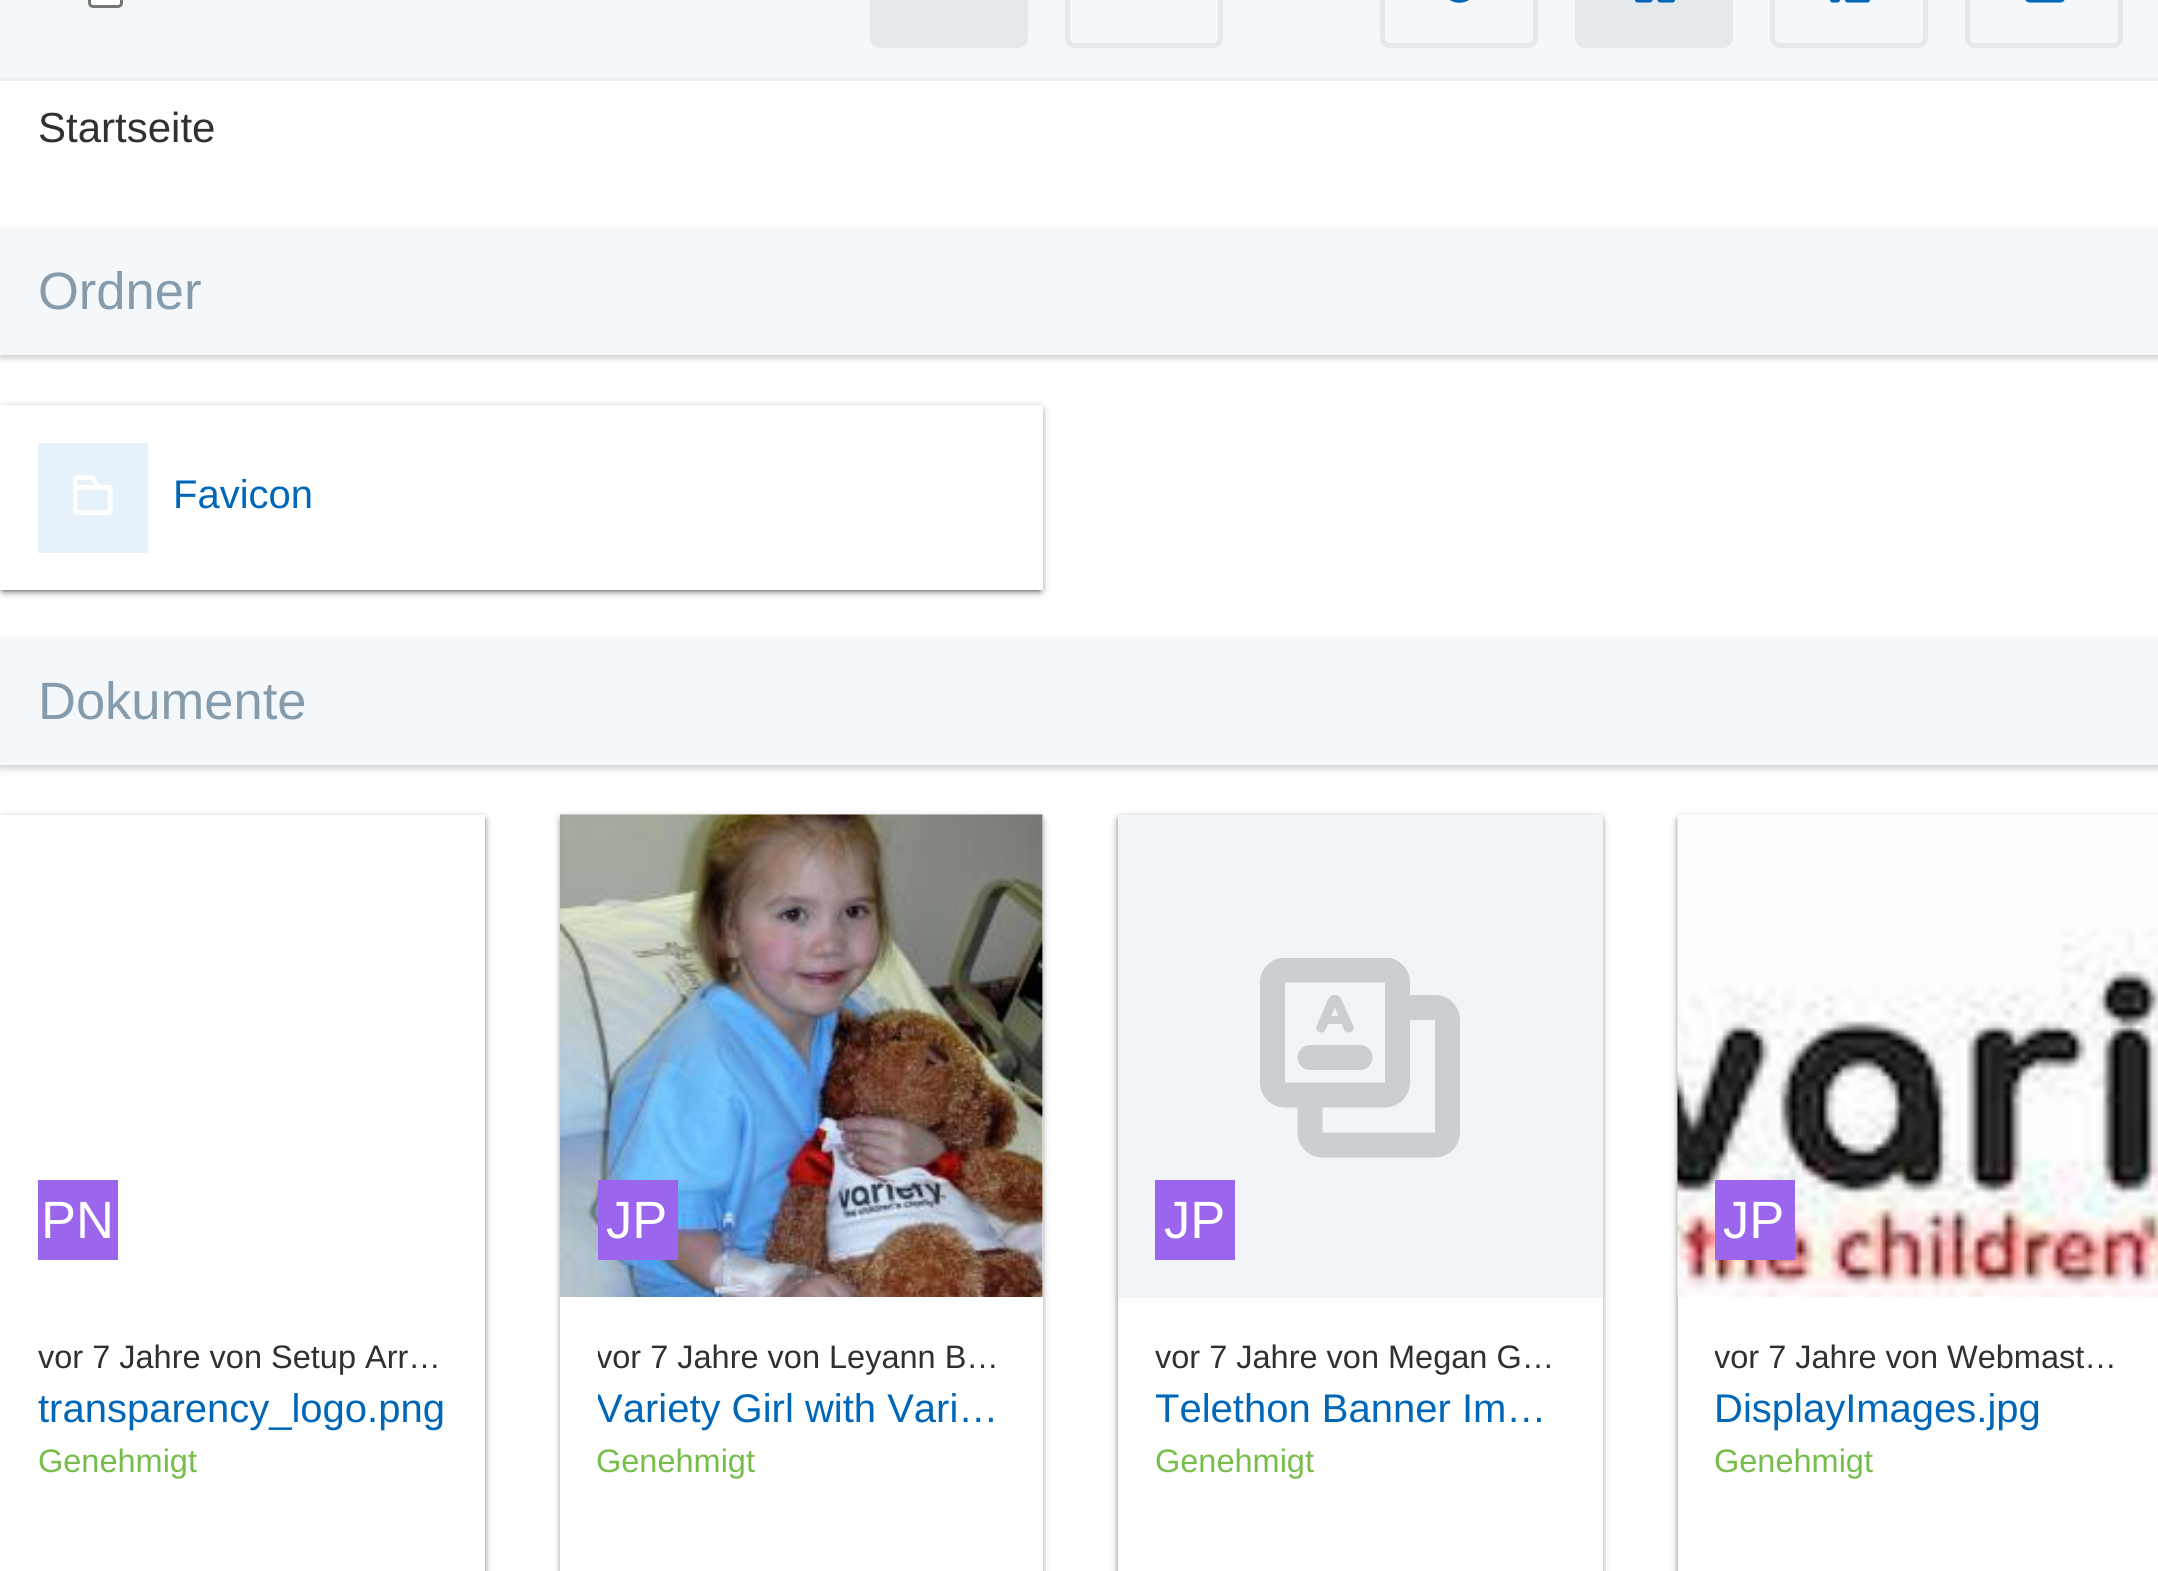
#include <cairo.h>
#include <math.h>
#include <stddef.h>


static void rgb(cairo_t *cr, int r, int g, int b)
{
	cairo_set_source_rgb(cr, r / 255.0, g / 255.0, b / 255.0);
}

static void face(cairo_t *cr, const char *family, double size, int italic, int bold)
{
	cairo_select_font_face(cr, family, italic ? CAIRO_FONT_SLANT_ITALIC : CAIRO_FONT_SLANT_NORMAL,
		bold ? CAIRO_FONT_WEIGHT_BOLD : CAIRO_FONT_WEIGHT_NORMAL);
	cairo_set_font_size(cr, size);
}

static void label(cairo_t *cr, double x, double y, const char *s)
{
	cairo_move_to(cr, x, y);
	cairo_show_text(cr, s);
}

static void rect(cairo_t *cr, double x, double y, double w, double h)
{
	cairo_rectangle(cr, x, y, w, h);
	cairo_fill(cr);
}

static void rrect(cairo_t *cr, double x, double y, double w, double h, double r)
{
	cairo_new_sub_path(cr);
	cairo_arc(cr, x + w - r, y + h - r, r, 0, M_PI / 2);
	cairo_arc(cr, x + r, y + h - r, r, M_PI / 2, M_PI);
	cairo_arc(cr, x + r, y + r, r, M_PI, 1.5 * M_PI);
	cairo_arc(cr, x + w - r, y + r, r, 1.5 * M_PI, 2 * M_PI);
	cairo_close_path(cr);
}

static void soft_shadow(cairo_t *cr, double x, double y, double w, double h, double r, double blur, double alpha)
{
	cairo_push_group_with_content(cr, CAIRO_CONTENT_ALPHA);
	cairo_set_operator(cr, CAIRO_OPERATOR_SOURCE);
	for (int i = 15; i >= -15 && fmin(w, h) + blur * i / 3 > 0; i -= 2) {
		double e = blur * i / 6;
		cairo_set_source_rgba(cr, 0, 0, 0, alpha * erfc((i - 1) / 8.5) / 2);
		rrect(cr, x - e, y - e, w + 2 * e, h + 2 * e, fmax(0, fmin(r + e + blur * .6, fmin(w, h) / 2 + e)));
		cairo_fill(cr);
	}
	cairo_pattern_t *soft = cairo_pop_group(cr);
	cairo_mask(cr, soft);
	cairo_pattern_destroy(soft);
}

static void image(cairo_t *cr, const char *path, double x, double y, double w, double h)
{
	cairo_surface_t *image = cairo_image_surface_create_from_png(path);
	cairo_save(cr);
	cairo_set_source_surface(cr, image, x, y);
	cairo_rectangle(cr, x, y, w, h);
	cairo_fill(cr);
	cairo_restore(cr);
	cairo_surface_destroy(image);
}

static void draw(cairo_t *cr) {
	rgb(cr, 255, 255, 255);
	cairo_paint(cr);
	rgb(cr, 245, 248, 250);
	rect(cr, 0, 0, 2158, 78);
	rgb(cr, 237, 240, 242);
	rect(cr, 0, 78, 2158, 3);
	rgb(cr, 255, 255, 255);
	rrect(cr, 89.5, -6.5, 32, 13, 3.5);
	cairo_fill_preserve(cr);
	rgb(cr, 118, 118, 118);
	cairo_set_line_width(cr, 3);
	cairo_stroke(cr);
	rgb(cr, 228, 233, 236);
	rrect(cr, 872.5, -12.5, 153, 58, 7.5);
	cairo_fill_preserve(cr);
	cairo_set_line_width(cr, 5);
	cairo_stroke(cr);
	rrect(cr, 1067.5, -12.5, 153, 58, 7.5);
	cairo_stroke(cr);
	rrect(cr, 1382.5, -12.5, 153, 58, 7.5);
	cairo_stroke(cr);
	rgb(cr, 0, 103, 184);
	cairo_new_path(cr);
	cairo_move_to(cr, 1474, -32);
	cairo_curve_to(cr, 1456, -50, 1427, -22, 1446, -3);
	cairo_curve_to(cr, 1464, 15, 1493, -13, 1474, -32);
	cairo_close_path(cr);
	cairo_move_to(cr, 1462, -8);
	cairo_curve_to(cr, 1462, -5, 1459, -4, 1458, -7);
	cairo_line_to(cr, 1458, -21);
	cairo_curve_to(cr, 1459, -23, 1461, -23, 1462, -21);
	cairo_close_path(cr);
	cairo_move_to(cr, 1460, -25);
	cairo_curve_to(cr, 1457, -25, 1457, -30, 1460, -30);
	cairo_curve_to(cr, 1463, -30, 1463, -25, 1460, -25);
	cairo_close_path(cr);
	cairo_fill(cr);
	rgb(cr, 228, 233, 236);
	rrect(cr, 1577.5, -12.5, 153, 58, 7.5);
	cairo_fill_preserve(cr);
	cairo_stroke(cr);
	image(cr, "image0.png", 1635, 0, 40, 3);
	rrect(cr, 1772.5, -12.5, 153, 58, 7.5);
	cairo_stroke(cr);
	image(cr, "image1.png", 1830, 0, 40, 3);
	rrect(cr, 1967.5, -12.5, 153, 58, 7.5);
	cairo_stroke(cr);
	image(cr, "image2.png", 2025, 0, 40, 3);
	face(cr, "Liberation Sans", 42, 0, 0);
	rgb(cr, 48, 48, 48);
	label(cr, 38, 142, "Startseite");
	rgb(cr, 0, 0, 0);
	soft_shadow(cr, 0, 233, 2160, 125, 0, 4, 0.2);
	rgb(cr, 245, 248, 250);
	rect(cr, 0, 230, 2158, 125);
	face(cr, "Liberation Sans", 52.5, 0, 0);
	rgb(cr, 134, 156, 173);
	label(cr, 38, 309, "Ordner");
	rgb(cr, 0, 0, 0);
	soft_shadow(cr, 3, 410, 1037, 180, 0, 4, 0.9);
	rgb(cr, 255, 255, 255);
	rect(cr, 0, 405, 1043, 185);
	rgb(cr, 231, 241, 249);
	rect(cr, 38, 443, 110, 110);
	image(cr, "image3.png", 73, 475, 40, 40);
	face(cr, "Liberation Sans", 40, 0, 0);
	rgb(cr, 0, 103, 184);
	label(cr, 173, 508, "Favicon");
	rgb(cr, 0, 0, 0);
	soft_shadow(cr, 0, 643, 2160, 125, 0, 4, 0.2);
	rgb(cr, 245, 248, 250);
	rect(cr, 0, 640, 2158, 125);
	face(cr, "Liberation Sans", 52.5, 0, 0);
	rgb(cr, 134, 156, 173);
	label(cr, 38, 719, "Dokumente");
	cairo_save(cr);
	cairo_set_fill_rule(cr, CAIRO_FILL_RULE_EVEN_ODD);
	cairo_new_path(cr);
	cairo_move_to(cr, 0, 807);
	cairo_line_to(cr, 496, 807);
	cairo_line_to(cr, 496, 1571);
	cairo_line_to(cr, 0, 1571);
	cairo_close_path(cr);
	cairo_move_to(cr, 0, 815);
	cairo_line_to(cr, 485, 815);
	cairo_line_to(cr, 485, 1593);
	cairo_line_to(cr, 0, 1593);
	cairo_close_path(cr);
	cairo_clip(cr);
	rgb(cr, 0, 0, 0);
	soft_shadow(cr, 3, 820, 480, 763, 0, 4, 0.9);
	cairo_restore(cr);
	rgb(cr, 155, 101, 237);
	rect(cr, 38, 1180, 80, 80);
	rgb(cr, 255, 255, 255);
	label(cr, 41, 1238, "PN");
	face(cr, "Liberation Sans", 32.5, 0, 0);
	rgb(cr, 48, 48, 48);
	label(cr, 38, 1368, "vor 7 Jahre von Setup Arr…");
	face(cr, "Liberation Sans", 40, 0, 0);
	rgb(cr, 0, 103, 184);
	label(cr, 38, 1422, "transparency_logo.png");
	face(cr, "Liberation Sans", 32.5, 0, 0);
	rgb(cr, 118, 189, 74);
	label(cr, 38, 1472, "Genehmigt");
	rgb(cr, 0, 0, 0);
	soft_shadow(cr, 563, 820, 477, 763, 0, 4, 0.9);
	rgb(cr, 255, 255, 255);
	rect(cr, 560, 815, 483, 756);
	image(cr, "image4.png", 560, 814, 483, 483);
	rgb(cr, 155, 101, 237);
	rect(cr, 598, 1180, 80, 80);
	face(cr, "Liberation Sans", 52.5, 0, 0);
	rgb(cr, 255, 255, 255);
	label(cr, 606, 1238, "JP");
	cairo_save(cr);
	cairo_rectangle(cr, 598, 1335, 407, 48);
	cairo_clip(cr);
	face(cr, "Liberation Sans", 32.5, 0, 0);
	rgb(cr, 48, 48, 48);
	label(cr, 596, 1368, "vor 7 Jahre von Leyann B…");
	cairo_restore(cr);
	cairo_save(cr);
	cairo_rectangle(cr, 598, 1383, 407, 57);
	cairo_clip(cr);
	face(cr, "Liberation Sans", 40, 0, 0);
	rgb(cr, 0, 103, 184);
	label(cr, 596, 1422, "Variety Girl with Vari…");
	cairo_restore(cr);
	face(cr, "Liberation Sans", 32.5, 0, 0);
	rgb(cr, 118, 189, 74);
	label(cr, 596, 1472, "Genehmigt");
	rgb(cr, 0, 0, 0);
	soft_shadow(cr, 1120, 820, 480, 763, 0, 4, 0.9);
	rgb(cr, 255, 255, 255);
	rect(cr, 1118, 1298, 485, 273);
	rgb(cr, 241, 245, 250);
	rect(cr, 1118, 815, 485, 483);
	image(cr, "image5.png", 1260, 958, 200, 200);
	rgb(cr, 155, 101, 237);
	rect(cr, 1155, 1180, 80, 80);
	face(cr, "Liberation Sans", 52.5, 0, 0);
	rgb(cr, 255, 255, 255);
	label(cr, 1164, 1238, "JP");
	face(cr, "Liberation Sans", 32.5, 0, 0);
	rgb(cr, 48, 48, 48);
	label(cr, 1155, 1368, "vor 7 Jahre von Megan G…");
	face(cr, "Liberation Sans", 40, 0, 0);
	rgb(cr, 0, 103, 184);
	label(cr, 1155, 1422, "Telethon Banner Im…");
	face(cr, "Liberation Sans", 32.5, 0, 0);
	rgb(cr, 118, 189, 74);
	label(cr, 1155, 1472, "Genehmigt");
	cairo_save(cr);
	cairo_set_fill_rule(cr, CAIRO_FILL_RULE_EVEN_ODD);
	cairo_new_path(cr);
	cairo_move_to(cr, 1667, 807);
	cairo_line_to(cr, 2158, 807);
	cairo_line_to(cr, 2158, 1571);
	cairo_line_to(cr, 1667, 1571);
	cairo_close_path(cr);
	cairo_move_to(cr, 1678, 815);
	cairo_line_to(cr, 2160, 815);
	cairo_line_to(cr, 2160, 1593);
	cairo_line_to(cr, 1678, 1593);
	cairo_close_path(cr);
	cairo_clip(cr);
	rgb(cr, 0, 0, 0);
	soft_shadow(cr, 1680, 820, 478, 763, 0, 4, 0.9);
	cairo_restore(cr);
	image(cr, "image6.png", 1677, 814, 481, 483);
	rgb(cr, 155, 101, 237);
	rect(cr, 1715, 1180, 80, 80);
	face(cr, "Liberation Sans", 52.5, 0, 0);
	rgb(cr, 255, 255, 255);
	label(cr, 1723, 1238, "JP");
	cairo_save(cr);
	cairo_rectangle(cr, 1715, 1335, 408, 48);
	cairo_clip(cr);
	face(cr, "Liberation Sans", 32.5, 0, 0);
	rgb(cr, 48, 48, 48);
	label(cr, 1714, 1368, "vor 7 Jahre von Webmast…");
	cairo_restore(cr);
	face(cr, "Liberation Sans", 40, 0, 0);
	rgb(cr, 0, 103, 184);
	label(cr, 1714, 1422, "DisplayImages.jpg");
	face(cr, "Liberation Sans", 32.5, 0, 0);
	rgb(cr, 118, 189, 74);
	label(cr, 1714, 1472, "Genehmigt");
}

int main(void) {
	cairo_surface_t *surface = cairo_image_surface_create(CAIRO_FORMAT_RGB24, 2158, 1571);
	cairo_t *cr = cairo_create(surface);
	cairo_font_options_t *options = cairo_font_options_create();
	cairo_font_options_set_hint_metrics(options, CAIRO_HINT_METRICS_OFF);
	cairo_font_options_set_hint_style(options, CAIRO_HINT_STYLE_NONE);
	cairo_set_font_options(cr, options);
	cairo_set_miter_limit(cr, 4);
	draw(cr);
	cairo_surface_write_to_png(surface, "render.png");
	cairo_font_options_destroy(options);
	cairo_destroy(cr);
	cairo_surface_destroy(surface);
	return 0;
}
